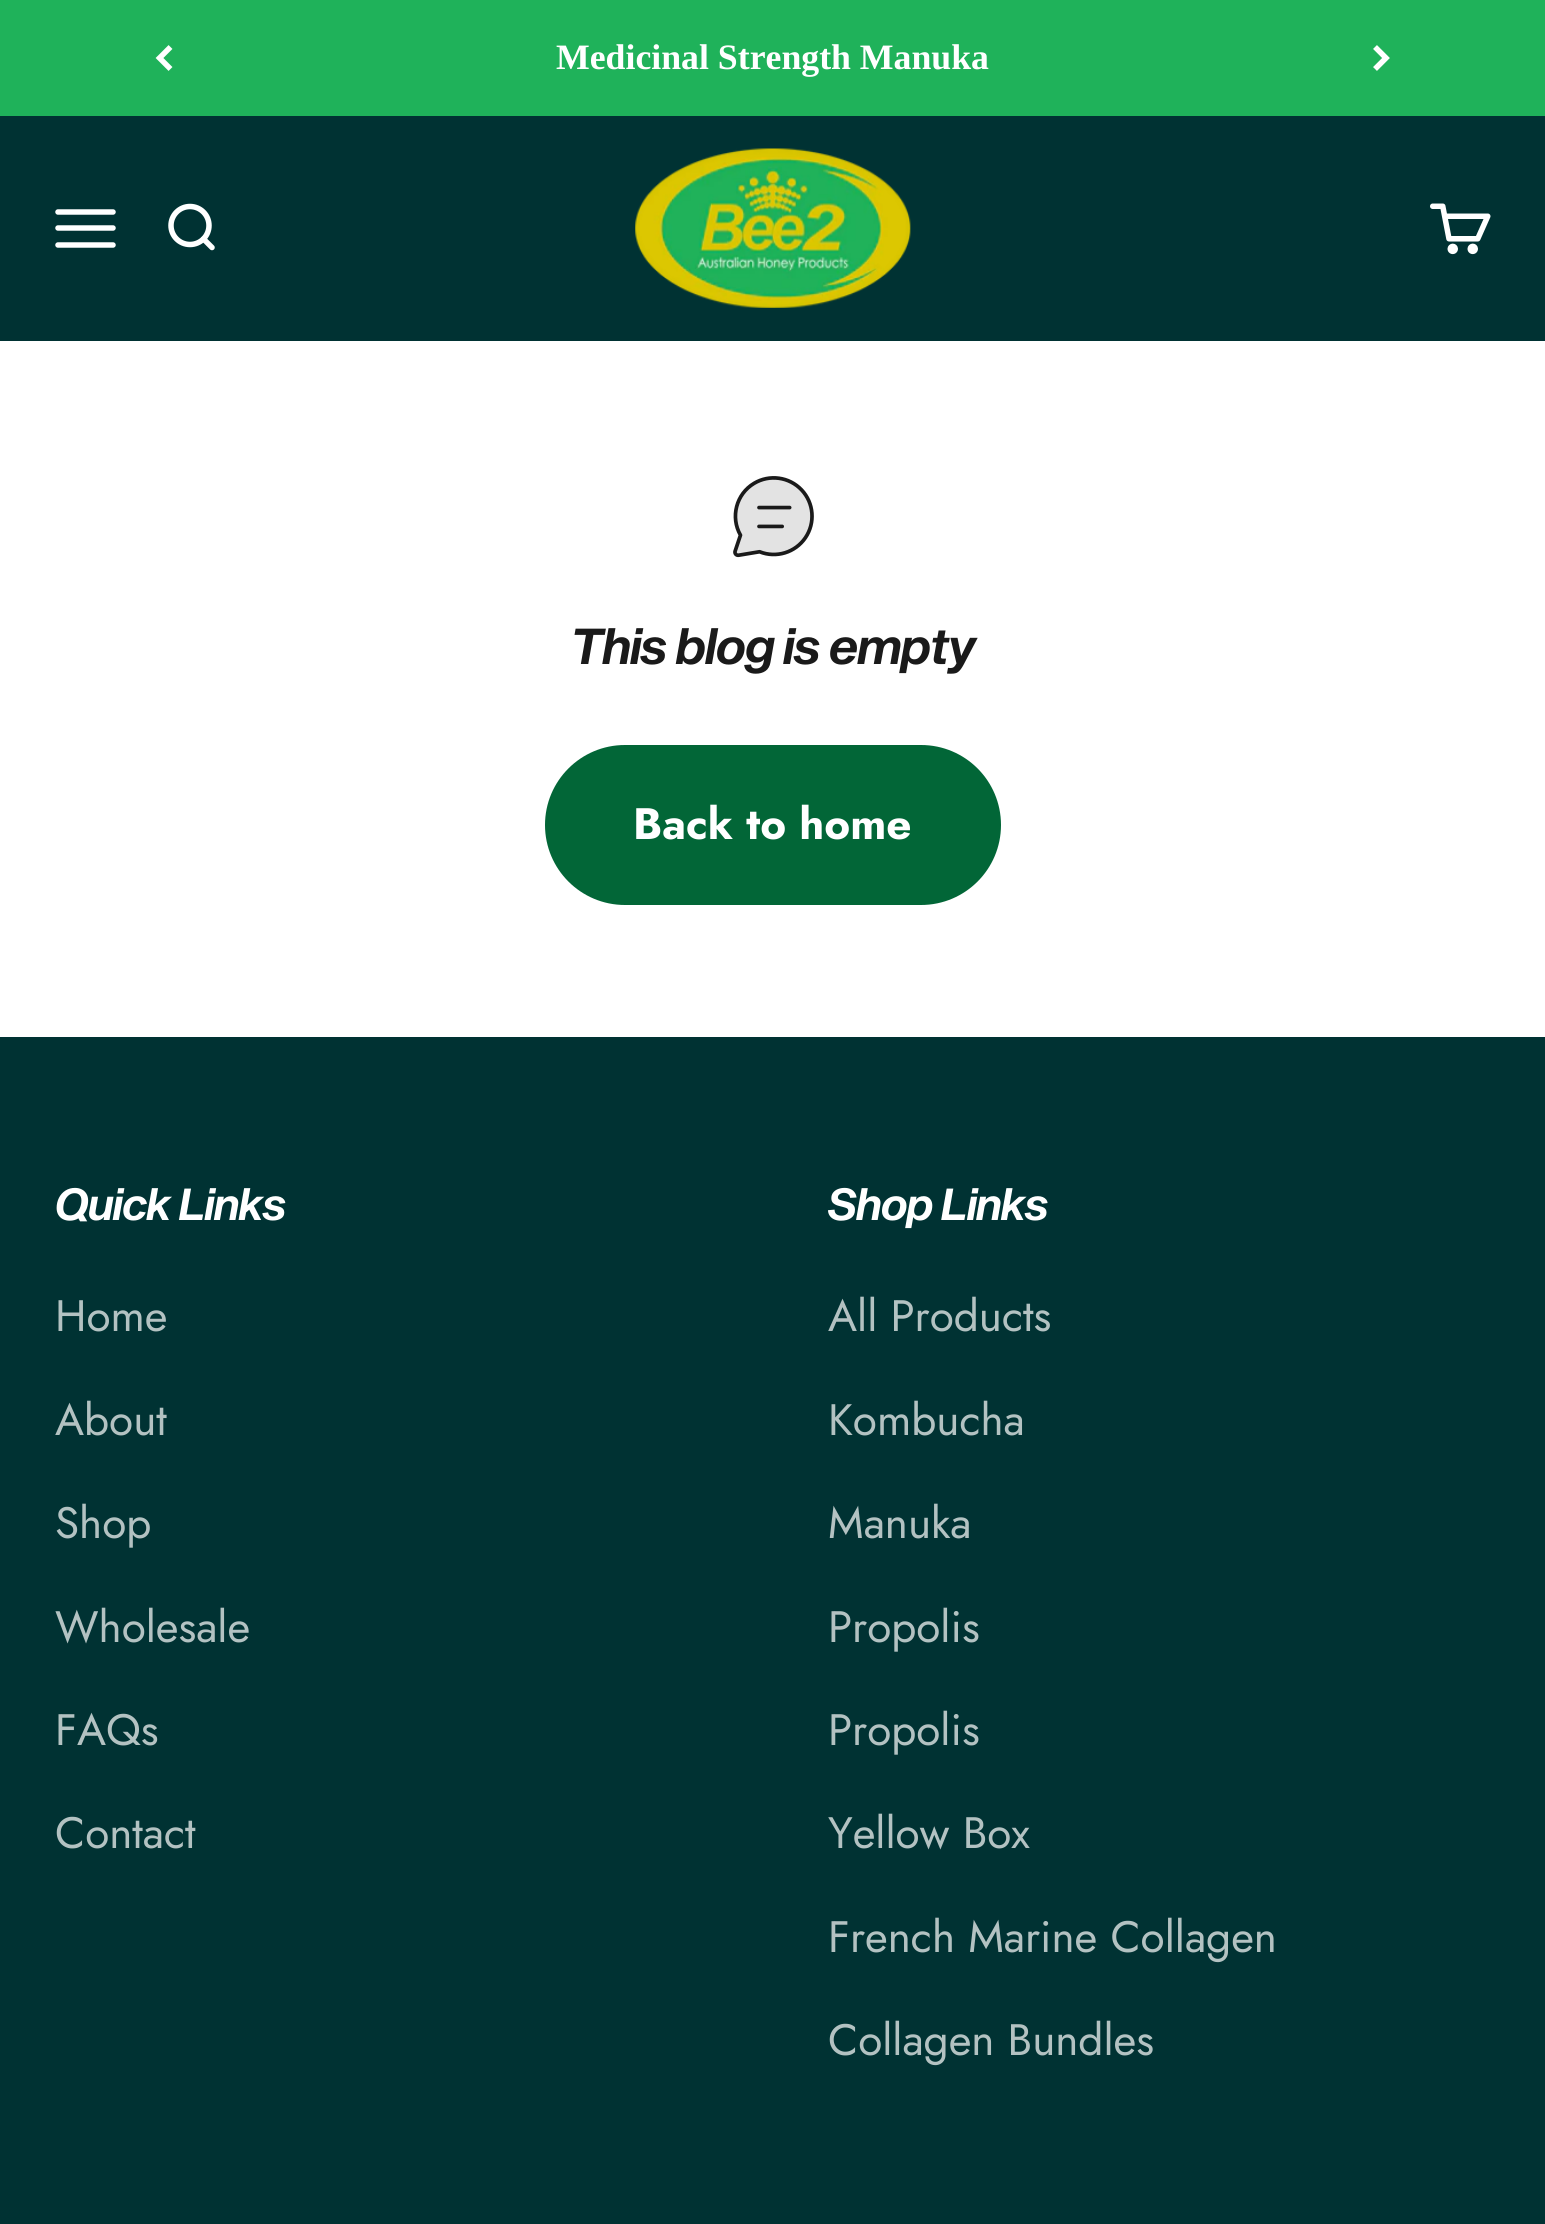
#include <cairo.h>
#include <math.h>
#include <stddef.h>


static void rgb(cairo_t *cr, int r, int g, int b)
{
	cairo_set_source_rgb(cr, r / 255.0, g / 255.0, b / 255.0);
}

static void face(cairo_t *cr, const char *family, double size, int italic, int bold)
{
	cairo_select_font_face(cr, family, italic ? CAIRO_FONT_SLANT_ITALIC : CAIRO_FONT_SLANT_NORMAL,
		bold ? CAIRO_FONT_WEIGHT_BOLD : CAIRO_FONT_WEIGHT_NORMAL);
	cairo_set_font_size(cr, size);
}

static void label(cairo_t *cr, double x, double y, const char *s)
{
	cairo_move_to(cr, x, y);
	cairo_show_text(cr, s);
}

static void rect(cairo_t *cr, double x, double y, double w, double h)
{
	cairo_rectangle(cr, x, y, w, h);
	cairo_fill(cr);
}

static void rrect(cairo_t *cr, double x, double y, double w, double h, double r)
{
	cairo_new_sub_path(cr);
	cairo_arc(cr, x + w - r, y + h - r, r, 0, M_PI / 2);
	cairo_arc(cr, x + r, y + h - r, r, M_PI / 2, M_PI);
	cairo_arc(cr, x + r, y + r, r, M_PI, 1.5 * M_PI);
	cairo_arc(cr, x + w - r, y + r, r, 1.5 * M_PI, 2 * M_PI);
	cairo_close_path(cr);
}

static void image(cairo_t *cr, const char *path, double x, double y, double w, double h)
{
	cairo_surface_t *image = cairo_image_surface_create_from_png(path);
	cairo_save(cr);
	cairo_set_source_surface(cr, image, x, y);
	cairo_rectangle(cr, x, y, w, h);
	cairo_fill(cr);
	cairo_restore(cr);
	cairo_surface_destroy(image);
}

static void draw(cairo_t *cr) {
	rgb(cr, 255, 255, 255);
	cairo_paint(cr);
	rgb(cr, 31, 178, 90);
	rect(cr, 0, 0, 1545, 116);
	cairo_new_path(cr);
	cairo_move_to(cr, 170.5, 47);
	cairo_line_to(cr, 159.5, 58);
	cairo_line_to(cr, 170.5, 69);
	rgb(cr, 255, 255, 255);
	cairo_set_line_width(cr, 5.5);
	cairo_stroke(cr);
	face(cr, "Liberation Serif", 35.75, 0, 1);
	label(cr, 556, 69, "Medicinal Strength Manuka");
	cairo_new_path(cr);
	cairo_move_to(cr, 1375, 69);
	cairo_line_to(cr, 1386, 58);
	cairo_line_to(cr, 1375, 47);
	cairo_stroke(cr);
	rgb(cr, 0, 50, 51);
	rect(cr, 0, 116, 1545, 225);
	cairo_new_path(cr);
	cairo_move_to(cr, 58, 212);
	cairo_line_to(cr, 113, 212);
	cairo_move_to(cr, 58, 228);
	cairo_line_to(cr, 113, 228);
	cairo_move_to(cr, 58, 245);
	cairo_line_to(cr, 113, 245);
	rgb(cr, 255, 255, 255);
	cairo_set_line_cap(cr, CAIRO_LINE_CAP_ROUND);
	cairo_stroke(cr);
	cairo_arc(cr, 190, 225.5, 19, 0, 2 * M_PI);
	cairo_set_line_cap(cr, CAIRO_LINE_CAP_BUTT);
	cairo_stroke(cr);
	cairo_new_path(cr);
	cairo_move_to(cr, 203.5, 239);
	cairo_line_to(cr, 212, 247.5);
	cairo_set_line_cap(cr, CAIRO_LINE_CAP_ROUND);
	cairo_set_line_join(cr, CAIRO_LINE_JOIN_ROUND);
	cairo_stroke(cr);
	image(cr, "image0.png", 635, 148, 276, 160);
	image(cr, "image1.png", 1430, 203, 61, 52);
	image(cr, "image2.png", 733, 476, 81, 82);
	face(cr, "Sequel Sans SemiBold", 49.5, 0, 0);
	rgb(cr, 26, 26, 26);
	label(cr, 571, 664, "This blog is empty");
	rgb(cr, 2, 102, 55);
	rrect(cr, 545, 745, 456, 160, 80);
	cairo_fill(cr);
	face(cr, "Jost", 44, 0, 1);
	rgb(cr, 255, 255, 255);
	label(cr, 633, 839, "Back to home");
	rgb(cr, 0, 50, 51);
	rect(cr, 0, 1037, 1545, 1187);
	face(cr, "Sequel Sans SemiBold", 44, 0, 0);
	rgb(cr, 255, 255, 255);
	label(cr, 55, 1220, "Quick Links");
	face(cr, "Jost", 44, 0, 0);
	rgb(cr, 179, 194, 194);
	label(cr, 55, 1331, "Home");
	label(cr, 55, 1435, "About");
	label(cr, 55, 1538, "Shop");
	label(cr, 55, 1642, "Wholesale");
	label(cr, 55, 1745, "FAQs");
	label(cr, 55, 1848, "Contact");
	face(cr, "Sequel Sans SemiBold", 44, 0, 0);
	rgb(cr, 255, 255, 255);
	label(cr, 828, 1220, "Shop Links");
	face(cr, "Jost", 44, 0, 0);
	rgb(cr, 179, 194, 194);
	label(cr, 828, 1331, "All Products");
	label(cr, 828, 1435, "Kombucha");
	label(cr, 828, 1538, "Manuka");
	label(cr, 828, 1642, "Propolis");
	label(cr, 828, 1745, "Propolis");
	label(cr, 828, 1848, "Yellow Box");
	label(cr, 828, 1952, "French Marine Collagen");
	label(cr, 828, 2055, "Collagen Bundles");
}

int main(void) {
	cairo_surface_t *surface = cairo_image_surface_create(CAIRO_FORMAT_RGB24, 1545, 2224);
	cairo_t *cr = cairo_create(surface);
	cairo_font_options_t *options = cairo_font_options_create();
	cairo_font_options_set_hint_metrics(options, CAIRO_HINT_METRICS_OFF);
	cairo_font_options_set_hint_style(options, CAIRO_HINT_STYLE_NONE);
	cairo_set_font_options(cr, options);
	cairo_set_miter_limit(cr, 4);
	draw(cr);
	cairo_surface_write_to_png(surface, "render.png");
	cairo_font_options_destroy(options);
	cairo_destroy(cr);
	cairo_surface_destroy(surface);
	return 0;
}
